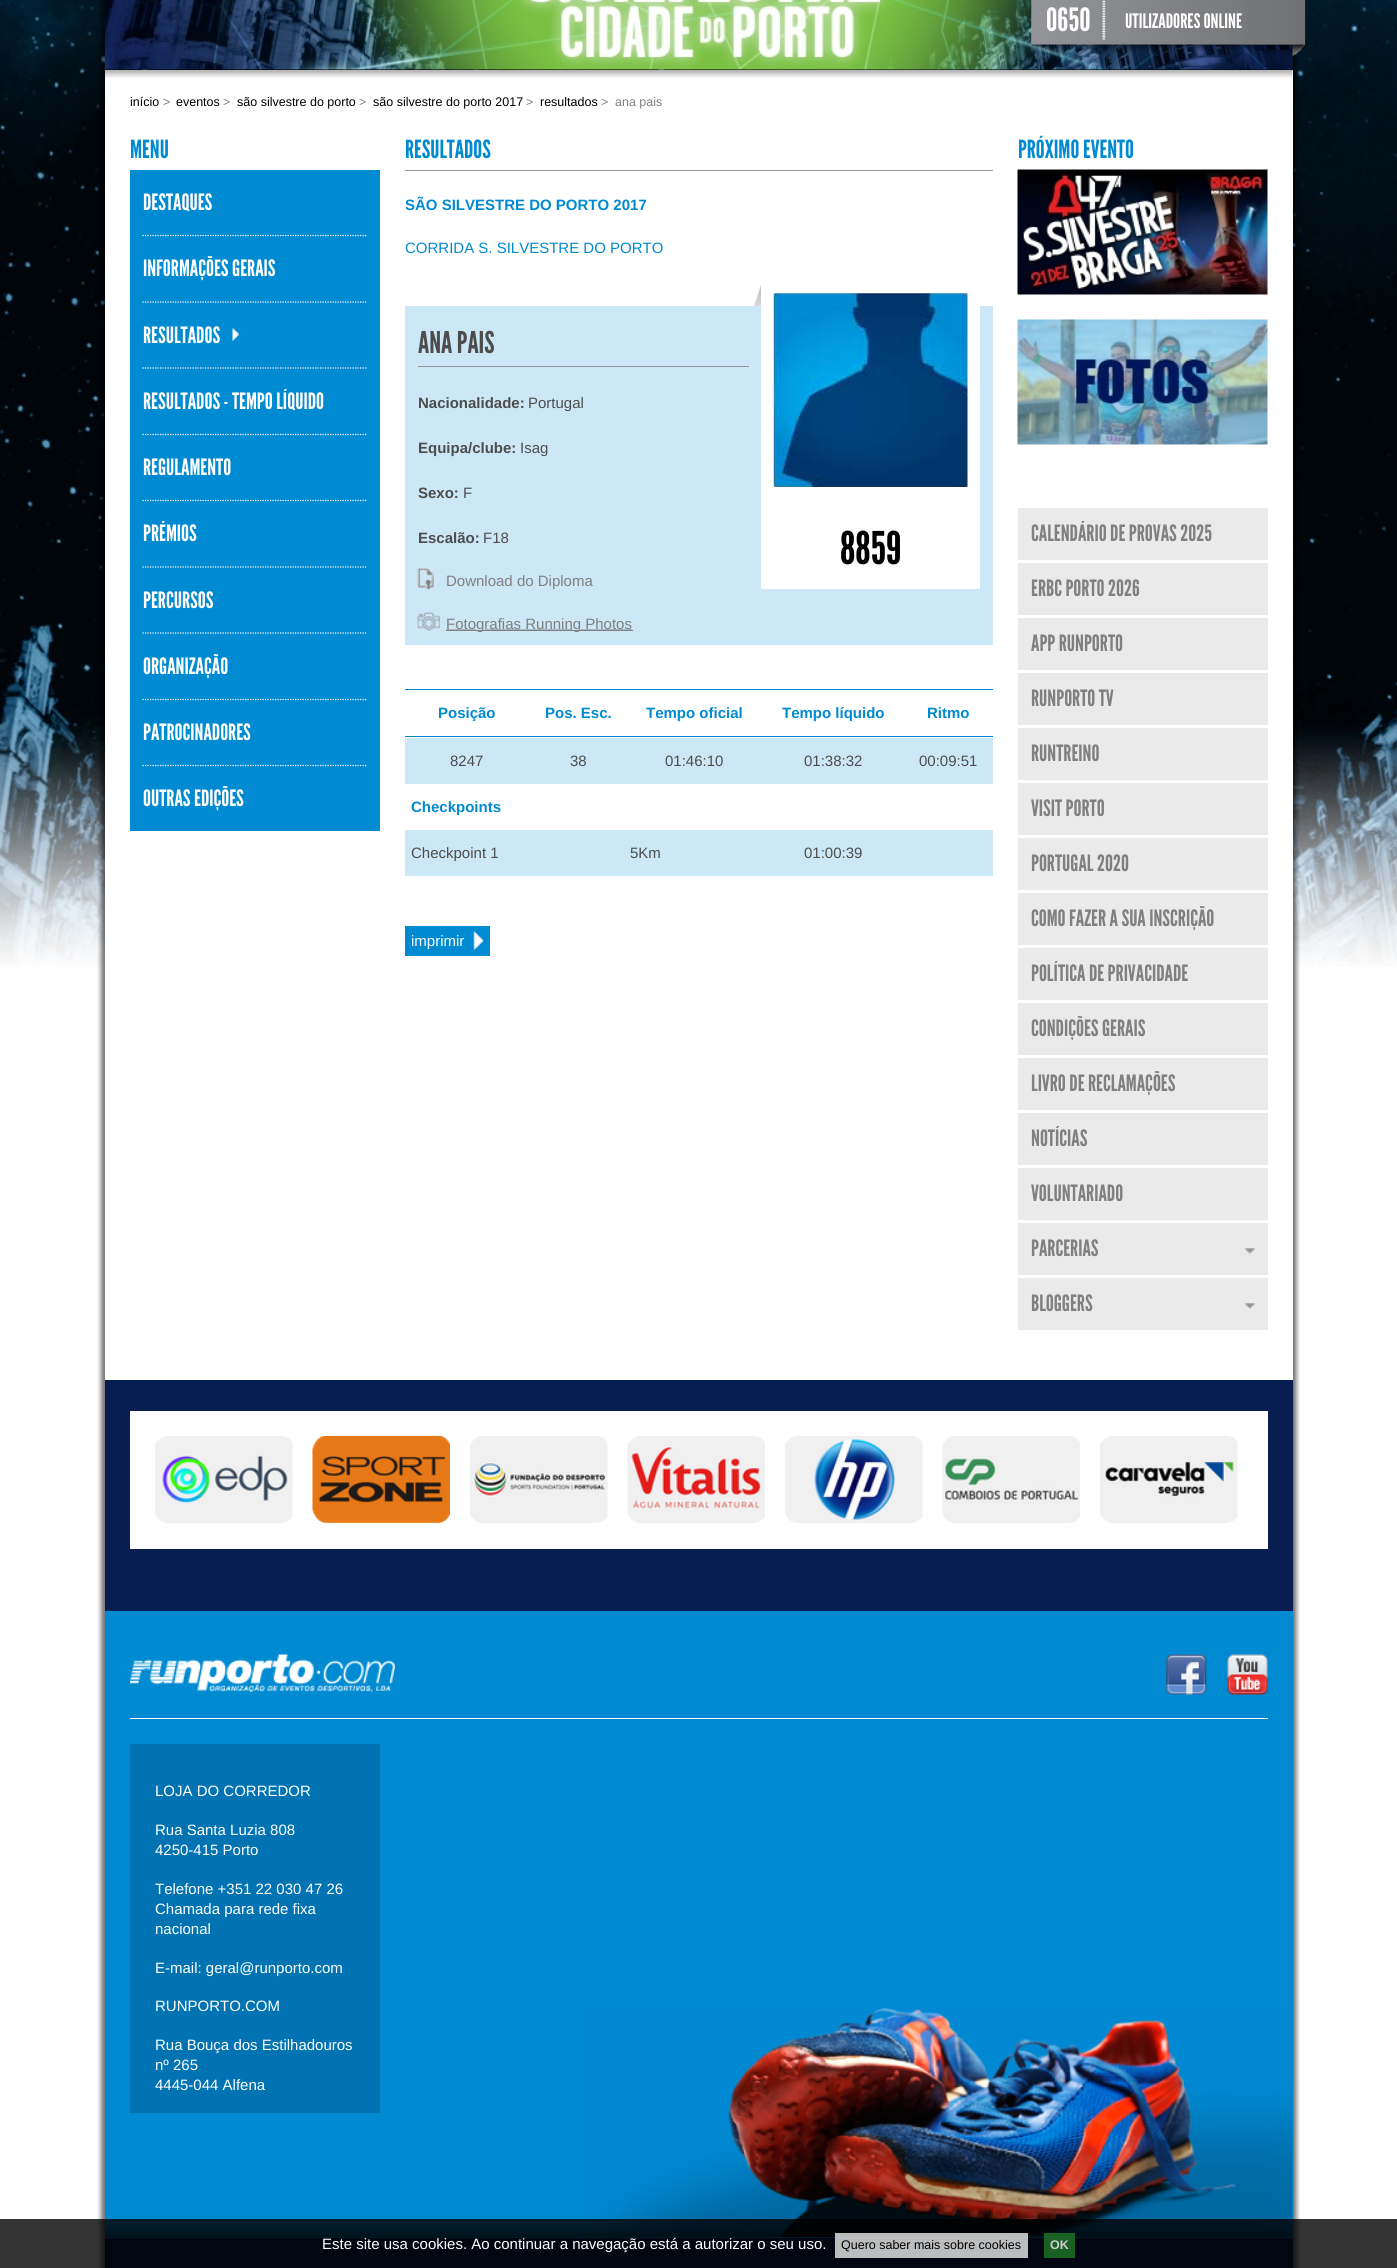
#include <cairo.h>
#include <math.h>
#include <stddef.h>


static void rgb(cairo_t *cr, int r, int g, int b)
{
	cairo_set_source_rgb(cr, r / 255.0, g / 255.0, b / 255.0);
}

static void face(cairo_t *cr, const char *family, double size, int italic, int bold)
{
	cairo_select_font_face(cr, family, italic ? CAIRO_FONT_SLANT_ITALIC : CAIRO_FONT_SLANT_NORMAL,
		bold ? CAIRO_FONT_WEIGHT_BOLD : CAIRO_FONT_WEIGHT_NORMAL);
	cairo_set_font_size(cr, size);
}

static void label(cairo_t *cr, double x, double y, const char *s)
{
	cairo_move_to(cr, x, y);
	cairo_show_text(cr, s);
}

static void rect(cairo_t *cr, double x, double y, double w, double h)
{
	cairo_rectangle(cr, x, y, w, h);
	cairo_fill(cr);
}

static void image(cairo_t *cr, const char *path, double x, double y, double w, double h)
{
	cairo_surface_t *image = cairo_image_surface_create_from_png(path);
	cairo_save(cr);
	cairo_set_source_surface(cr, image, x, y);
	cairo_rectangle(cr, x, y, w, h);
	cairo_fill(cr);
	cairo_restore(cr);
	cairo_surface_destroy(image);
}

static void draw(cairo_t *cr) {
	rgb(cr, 255, 255, 255);
	cairo_paint(cr);
	image(cr, "image0.png", 0, 0, 1397, 967);
	image(cr, "image1.png", 97, 0, 1203, 2268);
	image(cr, "image2.png", 105, 0, 1188, 70);
	image(cr, "image26.png", 1244, 0, 62, 56);
	image(cr, "image3.png", 1031, 0, 274, 54);
	face(cr, "League Gothic", 32, 0, 0);
	rgb(cr, 255, 255, 255);
	label(cr, 1046, 31, "0650");
	face(cr, "League Gothic", 20, 0, 0);
	label(cr, 1125, 28, "UTILIZADORES ONLINE");
	rect(cr, 105, 70, 1188, 1310);
	image(cr, "image4.png", 105, 69, 1188, 9);
	face(cr, "Liberation Sans", 12.5, 0, 0);
	rgb(cr, 0, 0, 0);
	label(cr, 130, 106, "início");
	rgb(cr, 128, 128, 128);
	label(cr, 163, 106, ">");
	rgb(cr, 0, 0, 0);
	label(cr, 176, 106, "eventos");
	rgb(cr, 128, 128, 128);
	label(cr, 223, 106, ">");
	rgb(cr, 0, 0, 0);
	label(cr, 237, 106, "são silvestre do porto");
	rgb(cr, 128, 128, 128);
	label(cr, 359, 106, ">");
	rgb(cr, 0, 0, 0);
	label(cr, 373, 106, "são silvestre do porto 2017");
	rgb(cr, 128, 128, 128);
	label(cr, 526, 106, ">");
	rgb(cr, 0, 0, 0);
	label(cr, 540, 106, "resultados");
	rgb(cr, 128, 128, 128);
	label(cr, 601, 106, ">");
	label(cr, 615, 106, "ana pais");
	face(cr, "League Gothic", 25, 0, 0);
	rgb(cr, 0, 138, 210);
	label(cr, 130, 158, "MENU");
	rect(cr, 130, 170, 250, 661);
	cairo_new_path(cr);
	cairo_move_to(cr, 142.5, 235.5);
	cairo_line_to(cr, 367.5, 235.5);
	rgb(cr, 255, 255, 255);
	cairo_set_line_width(cr, 1.2);
	cairo_set_dash(cr, (double[]){1.25, 1.25}, 2, 0);
	cairo_stroke(cr);
	face(cr, "League Gothic", 22.5, 0, 0);
	label(cr, 143, 210, "DESTAQUES");
	cairo_new_path(cr);
	cairo_move_to(cr, 142.5, 302);
	cairo_line_to(cr, 367.5, 302);
	cairo_stroke(cr);
	label(cr, 143, 276, "INFORMAÇÕES GERAIS");
	cairo_new_path(cr);
	cairo_move_to(cr, 142.5, 368);
	cairo_line_to(cr, 367.5, 368);
	cairo_stroke(cr);
	label(cr, 143, 343, "RESULTADOS");
	image(cr, "image5.png", 232, 328, 7, 13);
	cairo_new_path(cr);
	cairo_move_to(cr, 142.5, 434.5);
	cairo_line_to(cr, 367.5, 434.5);
	cairo_stroke(cr);
	label(cr, 143, 409, "RESULTADOS - TEMPO LÍQUIDO");
	cairo_new_path(cr);
	cairo_move_to(cr, 142.5, 500.5);
	cairo_line_to(cr, 367.5, 500.5);
	cairo_stroke(cr);
	label(cr, 143, 475, "REGULAMENTO");
	cairo_new_path(cr);
	cairo_move_to(cr, 142.5, 567);
	cairo_line_to(cr, 367.5, 567);
	cairo_stroke(cr);
	label(cr, 143, 541, "PRÉMIOS");
	cairo_new_path(cr);
	cairo_move_to(cr, 142.5, 633);
	cairo_line_to(cr, 367.5, 633);
	cairo_stroke(cr);
	label(cr, 143, 608, "PERCURSOS");
	cairo_new_path(cr);
	cairo_move_to(cr, 142.5, 699.5);
	cairo_line_to(cr, 367.5, 699.5);
	cairo_stroke(cr);
	label(cr, 143, 674, "ORGANIZAÇÃO");
	cairo_new_path(cr);
	cairo_move_to(cr, 142.5, 765.5);
	cairo_line_to(cr, 367.5, 765.5);
	cairo_stroke(cr);
	label(cr, 143, 740, "PATROCINADORES");
	label(cr, 143, 806, "OUTRAS EDIÇÕES");
	rgb(cr, 147, 149, 152);
	rect(cr, 405, 170, 588, 1);
	face(cr, "League Gothic", 25, 0, 0);
	rgb(cr, 0, 138, 210);
	label(cr, 405, 158, "RESULTADOS");
	face(cr, "Liberation Sans", 15, 0, 1);
	label(cr, 405, 210, "SÃO SILVESTRE DO PORTO 2017");
	face(cr, "Liberation Sans", 15, 0, 0);
	label(cr, 405, 253, "CORRIDA S. SILVESTRE DO PORTO");
	rgb(cr, 204, 232, 246);
	rect(cr, 405, 306, 588, 339);
	image(cr, "image6.png", 753, 285, 8, 21);
	rgb(cr, 147, 149, 152);
	rect(cr, 418, 366, 331, 1);
	face(cr, "League Gothic", 30, 0, 0);
	rgb(cr, 77, 77, 77);
	label(cr, 418, 353, "ANA PAIS");
	face(cr, "Liberation Sans", 15, 0, 1);
	label(cr, 418, 408, "Nacionalidade:");
	face(cr, "Liberation Sans", 15, 0, 0);
	label(cr, 528, 408, "Portugal");
	face(cr, "Liberation Sans", 15, 0, 1);
	label(cr, 418, 453, "Equipa/clube:");
	face(cr, "Liberation Sans", 15, 0, 0);
	label(cr, 520, 453, "Isag");
	face(cr, "Liberation Sans", 15, 0, 1);
	label(cr, 418, 498, "Sexo:");
	face(cr, "Liberation Sans", 15, 0, 0);
	label(cr, 463, 498, "F");
	face(cr, "Liberation Sans", 15, 0, 1);
	label(cr, 418, 543, "Escalão:");
	face(cr, "Liberation Sans", 15, 0, 0);
	label(cr, 483, 543, "F18");
	image(cr, "image7.png", 417, 568, 17, 22);
	rgb(cr, 128, 128, 128);
	label(cr, 446, 586, "Download do Diploma");
	image(cr, "image8.png", 417, 612, 216, 19);
	rect(cr, 446, 630, 187, 1);
	label(cr, 446, 629, "Fotografias Running Photos");
	rgb(cr, 255, 255, 255);
	rect(cr, 761, 306, 219, 283);
	image(cr, "image9.png", 773, 293, 195, 194);
	face(cr, "League Gothic", 45, 0, 0);
	rgb(cr, 0, 0, 0);
	label(cr, 840, 564, "8859");
	rgb(cr, 0, 138, 210);
	rect(cr, 405, 689, 588, 1);
	rect(cr, 405, 736, 588, 1);
	face(cr, "Liberation Sans", 15, 0, 1);
	label(cr, 438, 718, "Posição");
	label(cr, 545, 718, "Pos. Esc.");
	label(cr, 646, 718, "Tempo oficial");
	label(cr, 782, 718, "Tempo líquido");
	label(cr, 927, 718, "Ritmo");
	rgb(cr, 204, 232, 246);
	rect(cr, 405, 738, 588, 46);
	face(cr, "Liberation Sans", 15, 0, 0);
	rgb(cr, 77, 77, 77);
	label(cr, 450, 766, "8247");
	label(cr, 570, 766, "38");
	label(cr, 665, 766, "01:46:10");
	label(cr, 804, 766, "01:38:32");
	label(cr, 919, 766, "00:09:51");
	face(cr, "Liberation Sans", 15, 0, 1);
	rgb(cr, 0, 138, 210);
	label(cr, 411, 812, "Checkpoints");
	rgb(cr, 204, 232, 246);
	rect(cr, 405, 830, 588, 46);
	face(cr, "Liberation Sans", 15, 0, 0);
	rgb(cr, 77, 77, 77);
	label(cr, 411, 858, "Checkpoint 1");
	label(cr, 630, 858, "5Km");
	label(cr, 804, 858, "01:00:39");
	rgb(cr, 0, 138, 210);
	rect(cr, 405, 926, 85, 30);
	image(cr, "image10.png", 465, 926, 25, 25);
	rgb(cr, 255, 255, 255);
	label(cr, 411, 946, "imprimir");
	face(cr, "League Gothic", 25, 0, 0);
	rgb(cr, 0, 138, 210);
	label(cr, 1018, 158, "PRÓXIMO EVENTO");
	image(cr, "image11.png", 1017, 169, 251, 126);
	image(cr, "image12.png", 1017, 319, 251, 126);
	rgb(cr, 234, 234, 234);
	rect(cr, 1018, 508, 250, 52);
	face(cr, "League Gothic", 22.5, 0, 0);
	rgb(cr, 128, 128, 128);
	label(cr, 1031, 541, "CALENDÁRIO DE PROVAS 2025");
	rgb(cr, 234, 234, 234);
	rect(cr, 1018, 563, 250, 52);
	rgb(cr, 128, 128, 128);
	label(cr, 1031, 596, "ERBC PORTO 2026");
	rgb(cr, 234, 234, 234);
	rect(cr, 1018, 618, 250, 52);
	rgb(cr, 128, 128, 128);
	label(cr, 1031, 651, "APP RUNPORTO");
	rgb(cr, 234, 234, 234);
	rect(cr, 1018, 673, 250, 52);
	rgb(cr, 128, 128, 128);
	label(cr, 1031, 706, "RUNPORTO TV");
	rgb(cr, 234, 234, 234);
	rect(cr, 1018, 728, 250, 52);
	rgb(cr, 128, 128, 128);
	label(cr, 1031, 761, "RUNTREINO");
	rgb(cr, 234, 234, 234);
	rect(cr, 1018, 783, 250, 52);
	rgb(cr, 128, 128, 128);
	label(cr, 1031, 816, "VISIT PORTO");
	rgb(cr, 234, 234, 234);
	rect(cr, 1018, 838, 250, 52);
	rgb(cr, 128, 128, 128);
	label(cr, 1031, 871, "PORTUGAL 2020");
	rgb(cr, 234, 234, 234);
	rect(cr, 1018, 893, 250, 52);
	rgb(cr, 128, 128, 128);
	label(cr, 1031, 926, "COMO FAZER A SUA INSCRIÇÃO");
	rgb(cr, 234, 234, 234);
	rect(cr, 1018, 948, 250, 52);
	rgb(cr, 128, 128, 128);
	label(cr, 1031, 981, "POLÍTICA DE PRIVACIDADE");
	rgb(cr, 234, 234, 234);
	rect(cr, 1018, 1003, 250, 52);
	rgb(cr, 128, 128, 128);
	label(cr, 1031, 1036, "CONDIÇÕES GERAIS");
	rgb(cr, 234, 234, 234);
	rect(cr, 1018, 1058, 250, 52);
	rgb(cr, 128, 128, 128);
	label(cr, 1031, 1091, "LIVRO DE RECLAMAÇÕES");
	rgb(cr, 234, 234, 234);
	rect(cr, 1018, 1113, 250, 52);
	rgb(cr, 128, 128, 128);
	label(cr, 1031, 1146, "NOTÍCIAS");
	rgb(cr, 234, 234, 234);
	rect(cr, 1018, 1168, 250, 52);
	rgb(cr, 128, 128, 128);
	label(cr, 1031, 1201, "VOLUNTARIADO");
	rgb(cr, 234, 234, 234);
	rect(cr, 1018, 1223, 250, 52);
	image(cr, "image13.png", 1244, 1248, 12, 6);
	rgb(cr, 128, 128, 128);
	label(cr, 1031, 1256, "PARCERIAS");
	rgb(cr, 234, 234, 234);
	rect(cr, 1018, 1278, 250, 52);
	image(cr, "image13.png", 1244, 1303, 12, 6);
	rgb(cr, 128, 128, 128);
	label(cr, 1031, 1311, "BLOGGERS");
	rgb(cr, 8, 30, 80);
	rect(cr, 105, 1380, 1188, 888);
	rgb(cr, 255, 255, 255);
	rect(cr, 130, 1411, 1138, 138);
	image(cr, "image14.png", 155, 1436, 138, 87);
	image(cr, "image15.png", 312, 1435, 138, 89);
	image(cr, "image16.png", 470, 1436, 138, 87);
	image(cr, "image17.png", 627, 1436, 138, 87);
	image(cr, "image18.png", 785, 1436, 138, 87);
	image(cr, "image19.png", 942, 1436, 138, 87);
	image(cr, "image20.png", 1100, 1436, 138, 87);
	rgb(cr, 0, 138, 210);
	rect(cr, 105, 1611, 1188, 627);
	image(cr, "image21.png", 582, 2008, 711, 229);
	image(cr, "image22.png", 130, 1654, 265, 38);
	rgb(cr, 255, 255, 255);
	rect(cr, 130, 1718, 1138, 1);
	image(cr, "image23.png", 1166, 1654, 41, 41);
	rgb(cr, 0, 138, 210);
	cairo_arc(cr, 1208.5, 1691.5, 2.5, 0, 2 * M_PI);
	cairo_fill(cr);
	image(cr, "image24.png", 1227, 1654, 41, 41);
	rgb(cr, 1, 115, 178);
	rect(cr, 130, 1744, 250, 369);
	face(cr, "Liberation Sans", 15, 0, 0);
	rgb(cr, 255, 255, 255);
	label(cr, 155, 1796, "LOJA DO CORREDOR");
	label(cr, 155, 1835, "Rua Santa Luzia 808");
	label(cr, 155, 1855, "4250-415 Porto");
	label(cr, 155, 1894, "Telefone +351 22 030 47 26");
	label(cr, 155, 1914, "Chamada para rede fixa");
	label(cr, 155, 1934, "nacional");
	label(cr, 155, 1973, "E-mail: geral@runporto.com");
	label(cr, 155, 2011, "RUNPORTO.COM");
	label(cr, 155, 2050, "Rua Bouça dos Estilhadouros");
	label(cr, 155, 2070, "nº 265");
	label(cr, 155, 2090, "4445-044 Alfena");
	image(cr, "image25.png", 105, 2229, 1188, 8);
	cairo_set_source_rgba(cr, 0, 0, 0, 0.8);
	rect(cr, 0, 2219, 1397, 49);
	rgb(cr, 255, 255, 255);
	label(cr, 322, 2249, "Este site usa cookies. Ao continuar a navegação está a autorizar o seu uso.");
	cairo_set_source_rgba(cr, 0.922, 0.922, 0.922, 0.8);
	rect(cr, 835, 2233, 193, 25);
	face(cr, "Liberation Sans", 12.5, 0, 0);
	rgb(cr, 0, 0, 0);
	label(cr, 841, 2249, "Quero saber mais sobre cookies");
	cairo_set_source_rgba(cr, 0.125, 0.467, 0.153, 0.8);
	rect(cr, 1044, 2233, 31, 25);
	face(cr, "Liberation Sans", 12.5, 0, 1);
	rgb(cr, 204, 205, 207);
	label(cr, 1050, 2249, "OK");
}

int main(void) {
	cairo_surface_t *surface = cairo_image_surface_create(CAIRO_FORMAT_RGB24, 1397, 2268);
	cairo_t *cr = cairo_create(surface);
	cairo_font_options_t *options = cairo_font_options_create();
	cairo_font_options_set_hint_metrics(options, CAIRO_HINT_METRICS_OFF);
	cairo_font_options_set_hint_style(options, CAIRO_HINT_STYLE_NONE);
	cairo_set_font_options(cr, options);
	cairo_set_miter_limit(cr, 4);
	draw(cr);
	cairo_surface_write_to_png(surface, "render.png");
	cairo_font_options_destroy(options);
	cairo_destroy(cr);
	cairo_surface_destroy(surface);
	return 0;
}
